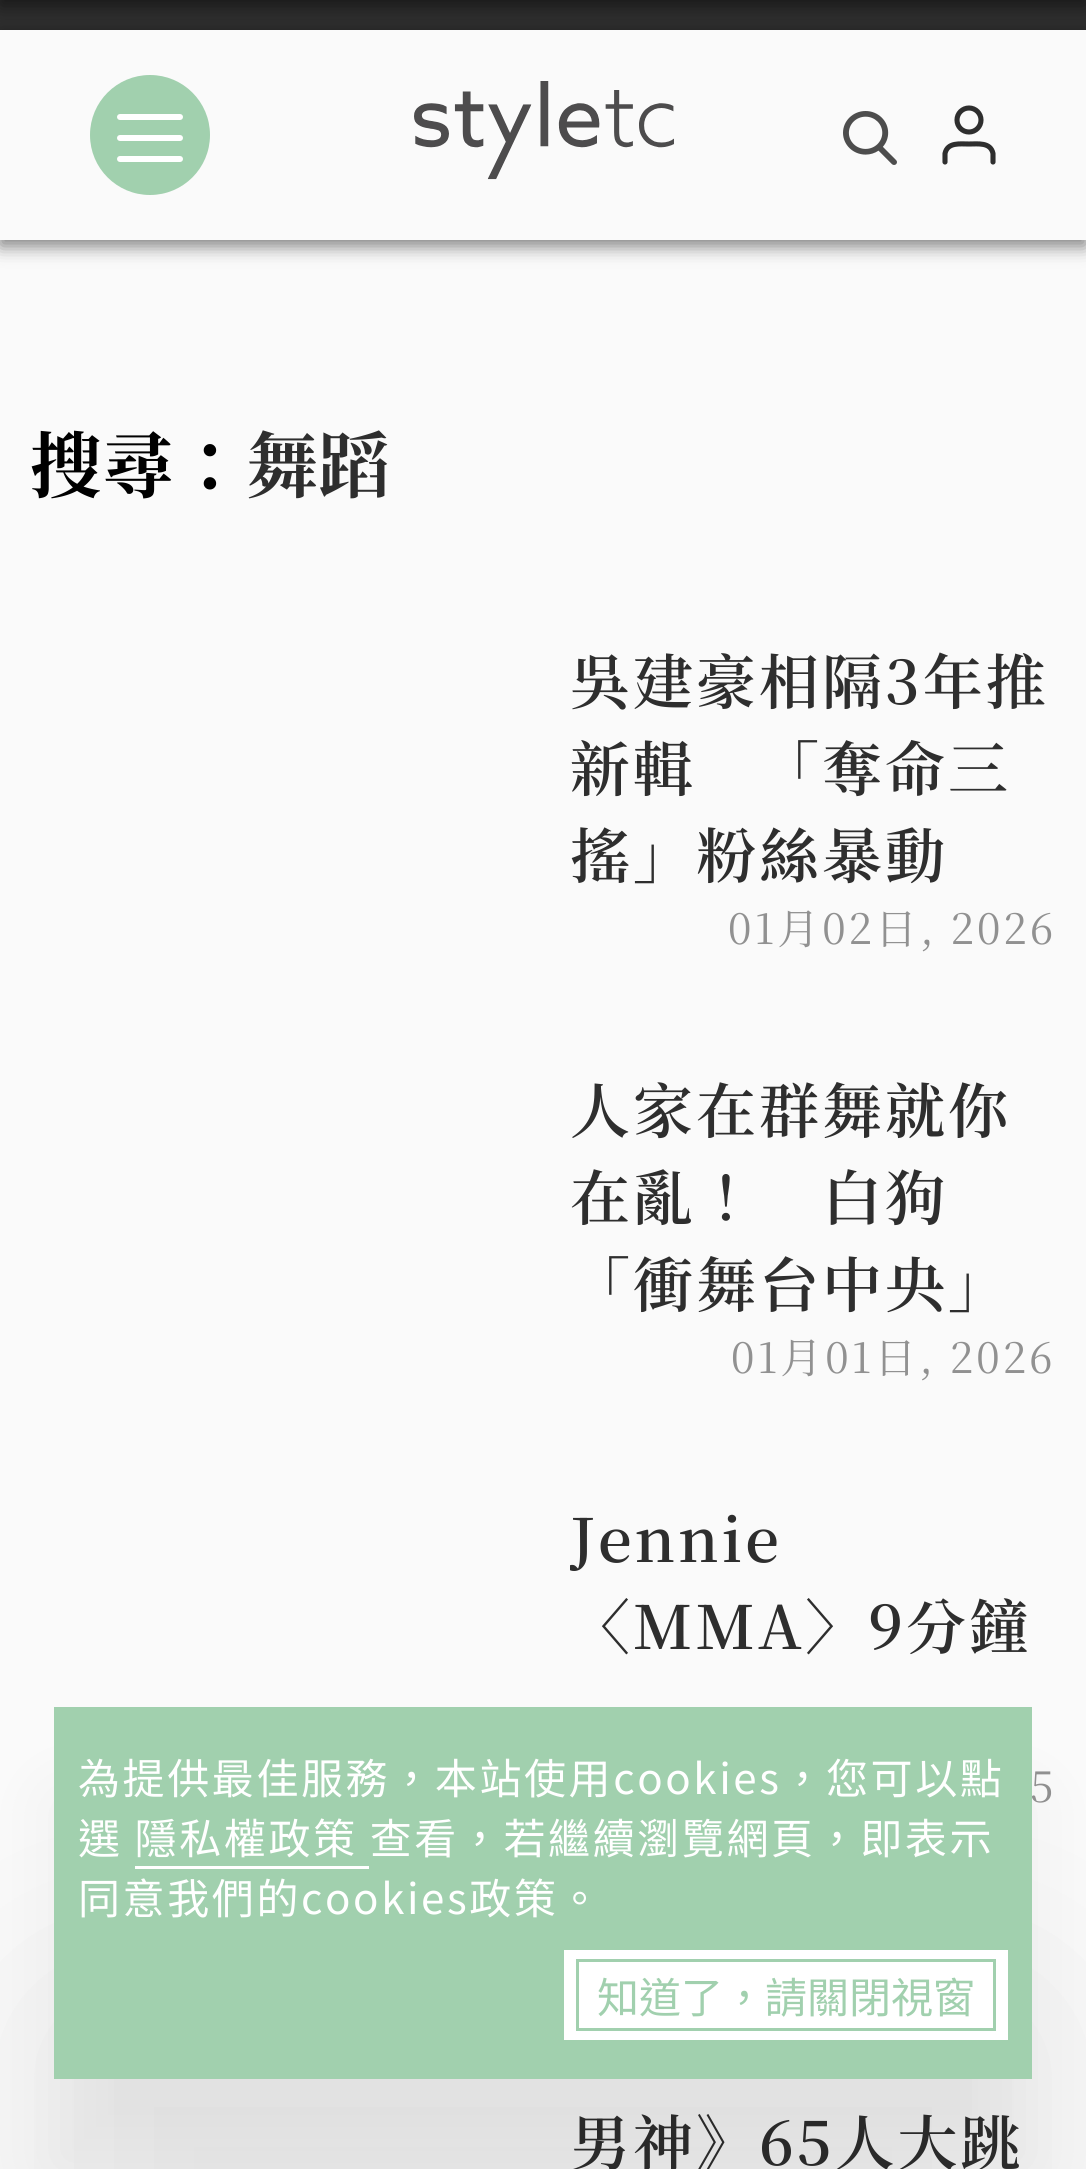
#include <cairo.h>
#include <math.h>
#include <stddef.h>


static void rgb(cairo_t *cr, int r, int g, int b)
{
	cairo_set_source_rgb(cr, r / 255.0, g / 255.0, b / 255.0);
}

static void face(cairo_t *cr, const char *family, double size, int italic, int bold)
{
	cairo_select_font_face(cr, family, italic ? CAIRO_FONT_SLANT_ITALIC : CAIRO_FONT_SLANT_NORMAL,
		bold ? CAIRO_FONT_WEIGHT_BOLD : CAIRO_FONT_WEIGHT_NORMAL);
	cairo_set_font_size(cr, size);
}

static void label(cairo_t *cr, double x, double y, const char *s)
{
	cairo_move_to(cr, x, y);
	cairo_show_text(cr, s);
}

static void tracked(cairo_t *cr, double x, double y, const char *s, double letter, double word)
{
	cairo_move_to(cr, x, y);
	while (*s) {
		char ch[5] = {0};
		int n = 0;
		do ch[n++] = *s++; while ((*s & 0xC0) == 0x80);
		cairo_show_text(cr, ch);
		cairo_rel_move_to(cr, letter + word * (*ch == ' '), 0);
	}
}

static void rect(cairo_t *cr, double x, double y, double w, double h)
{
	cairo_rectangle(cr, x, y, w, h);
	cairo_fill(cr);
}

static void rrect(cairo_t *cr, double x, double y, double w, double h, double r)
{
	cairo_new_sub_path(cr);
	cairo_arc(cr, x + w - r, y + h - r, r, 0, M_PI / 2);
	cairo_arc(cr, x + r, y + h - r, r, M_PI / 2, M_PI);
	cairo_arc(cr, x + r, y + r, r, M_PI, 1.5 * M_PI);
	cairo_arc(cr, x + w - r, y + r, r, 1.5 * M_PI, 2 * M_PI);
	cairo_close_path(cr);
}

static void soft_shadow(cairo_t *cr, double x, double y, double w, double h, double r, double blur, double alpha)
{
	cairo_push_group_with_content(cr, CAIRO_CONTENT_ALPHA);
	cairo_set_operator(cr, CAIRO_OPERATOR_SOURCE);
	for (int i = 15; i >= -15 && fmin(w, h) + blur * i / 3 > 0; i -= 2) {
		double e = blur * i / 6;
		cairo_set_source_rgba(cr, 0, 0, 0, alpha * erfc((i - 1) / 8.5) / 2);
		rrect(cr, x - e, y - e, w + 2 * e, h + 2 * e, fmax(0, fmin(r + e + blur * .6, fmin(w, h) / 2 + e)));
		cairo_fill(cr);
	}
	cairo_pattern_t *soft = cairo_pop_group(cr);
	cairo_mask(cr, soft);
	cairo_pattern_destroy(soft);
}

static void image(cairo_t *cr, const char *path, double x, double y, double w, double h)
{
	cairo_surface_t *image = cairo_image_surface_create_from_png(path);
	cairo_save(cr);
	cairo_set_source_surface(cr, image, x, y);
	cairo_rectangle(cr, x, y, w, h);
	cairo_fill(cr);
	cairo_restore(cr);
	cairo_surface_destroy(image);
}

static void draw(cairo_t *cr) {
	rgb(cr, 250, 250, 250);
	cairo_paint(cr);
	rgb(cr, 46, 46, 46);
	rect(cr, 0, 0, 1086, 30);
	rgb(cr, 0, 0, 0);
	soft_shadow(cr, 0, -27, 1086, 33, 0, 9, 0.5);
	cairo_save(cr);
	cairo_set_fill_rule(cr, CAIRO_FILL_RULE_EVEN_ODD);
	cairo_new_path(cr);
	cairo_move_to(cr, 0, 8);
	cairo_line_to(cr, 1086, 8);
	cairo_line_to(cr, 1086, 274);
	cairo_line_to(cr, 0, 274);
	cairo_close_path(cr);
	cairo_move_to(cr, 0, 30);
	cairo_line_to(cr, 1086, 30);
	cairo_line_to(cr, 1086, 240);
	cairo_line_to(cr, 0, 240);
	cairo_close_path(cr);
	cairo_clip(cr);
	soft_shadow(cr, 0, 36, 1086, 210, 0, 9, 0.5);
	cairo_restore(cr);
	rgb(cr, 161, 208, 174);
	cairo_arc(cr, 150, 135, 60, 0, 2 * M_PI);
	cairo_fill(cr);
	rgb(cr, 255, 255, 255);
	rrect(cr, 117, 114, 66, 6, 3);
	cairo_fill(cr);
	rrect(cr, 117, 135, 66, 6, 3);
	cairo_fill(cr);
	rrect(cr, 117, 156, 66, 6, 3);
	cairo_fill(cr);
	image(cr, "image0.png", 414, 81, 260, 99);
	image(cr, "image1.png", 843, 111, 54, 54);
	cairo_new_path(cr);
	cairo_move_to(cr, 993, 162);
	cairo_line_to(cr, 993, 153.5);
	cairo_curve_to(cr, 990.5, 142, 978, 144, 969, 144);
	cairo_curve_to(cr, 960, 144, 947.5, 142, 945, 153.5);
	cairo_line_to(cr, 945, 162);
	rgb(cr, 46, 46, 46);
	cairo_set_line_width(cr, 5.1);
	cairo_set_line_cap(cr, CAIRO_LINE_CAP_ROUND);
	cairo_set_line_join(cr, CAIRO_LINE_JOIN_ROUND);
	cairo_stroke(cr);
	cairo_arc(cr, 969, 120, 12, 0, 2 * M_PI);
	cairo_set_line_cap(cr, CAIRO_LINE_CAP_BUTT);
	cairo_set_line_join(cr, CAIRO_LINE_JOIN_MITER);
	cairo_stroke(cr);
	face(cr, "Noto Serif TC", 72, 0, 1);
	rgb(cr, 0, 0, 0);
	label(cr, 30, 492, "搜尋：");
	rgb(cr, 46, 46, 46);
	label(cr, 246, 492, "舞蹈");
	face(cr, "Noto Serif TC SemiBold", 60, 0, 0);
	tracked(cr, 570, 704, "吳建豪相隔3年推", 3, 0);
	tracked(cr, 570, 791, "新輯　「奪命三", 3, 0);
	tracked(cr, 570, 878, "搖」粉絲暴動", 3, 0);
	face(cr, "Noto Serif TC", 42, 0, 0);
	rgb(cr, 145, 145, 145);
	tracked(cr, 728, 944, "01月02日, 2026", 3, 0);
	face(cr, "Noto Serif TC SemiBold", 60, 0, 0);
	rgb(cr, 46, 46, 46);
	tracked(cr, 570, 1133, "人家在群舞就你", 3, 0);
	tracked(cr, 570, 1220, "在亂！　白狗", 3, 0);
	tracked(cr, 570, 1307, "「衝舞台中央」", 3, 0);
	face(cr, "Noto Serif TC", 42, 0, 0);
	rgb(cr, 145, 145, 145);
	tracked(cr, 731, 1373, "01月01日, 2026", 3, 0);
	cairo_save(cr);
	cairo_rectangle(cr, 570, 1494, 486, 261);
	cairo_clip(cr);
	face(cr, "Noto Serif TC SemiBold", 60, 0, 0);
	rgb(cr, 46, 46, 46);
	tracked(cr, 570, 1562, "Jennie", 3, 0);
	cairo_restore(cr);
	face(cr, "Noto Serif TC SemiBold", 60, 0, 0);
	rgb(cr, 46, 46, 46);
	tracked(cr, 570, 1649, "〈MMA〉9分鐘", 3, 0);
	face(cr, "Noto Serif TC", 42, 0, 0);
	rgb(cr, 145, 145, 145);
	tracked(cr, 1030, 1802, "5", 3, 0);
	face(cr, "Noto Serif TC SemiBold", 60, 0, 0);
	rgb(cr, 46, 46, 46);
	tracked(cr, 570, 2165, "男神》65人大跳", 3, 0);
	rgb(cr, 0, 0, 0);
	soft_shadow(cr, 54, 2007, 978, 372, 0, 120, 0.07);
	soft_shadow(cr, 54, 1797, 978, 372, 0, 36, 0.05);
	rgb(cr, 161, 208, 174);
	rect(cr, 54, 1707, 978, 372);
	face(cr, "Noto Sans TC", 42, 0, 0);
	rgb(cr, 255, 255, 255);
	tracked(cr, 78, 1794, "為提供最佳服務，本站使用cookies，您可以點", 2.6, 0);
	tracked(cr, 78, 1854, "選 隱私權政策 查看，若繼續瀏覽網頁，即表示", 2.6, 0);
	rect(cr, 135, 1866, 234, 3);
	tracked(cr, 78, 1914, "同意我們的cookies政策。", 2.6, 0);
	rect(cr, 564, 1950, 444, 90);
	cairo_rectangle(cr, 577.5, 1960.5, 417, 69);
	rgb(cr, 161, 208, 174);
	cairo_set_line_width(cr, 3);
	cairo_stroke(cr);
	label(cr, 597, 2013, "知道了，請關閉視窗");
}

int main(void) {
	cairo_surface_t *surface = cairo_image_surface_create(CAIRO_FORMAT_RGB24, 1086, 2169);
	cairo_t *cr = cairo_create(surface);
	cairo_font_options_t *options = cairo_font_options_create();
	cairo_font_options_set_hint_metrics(options, CAIRO_HINT_METRICS_OFF);
	cairo_font_options_set_hint_style(options, CAIRO_HINT_STYLE_NONE);
	cairo_set_font_options(cr, options);
	cairo_set_miter_limit(cr, 4);
	draw(cr);
	cairo_surface_write_to_png(surface, "render.png");
	cairo_font_options_destroy(options);
	cairo_destroy(cr);
	cairo_surface_destroy(surface);
	return 0;
}
